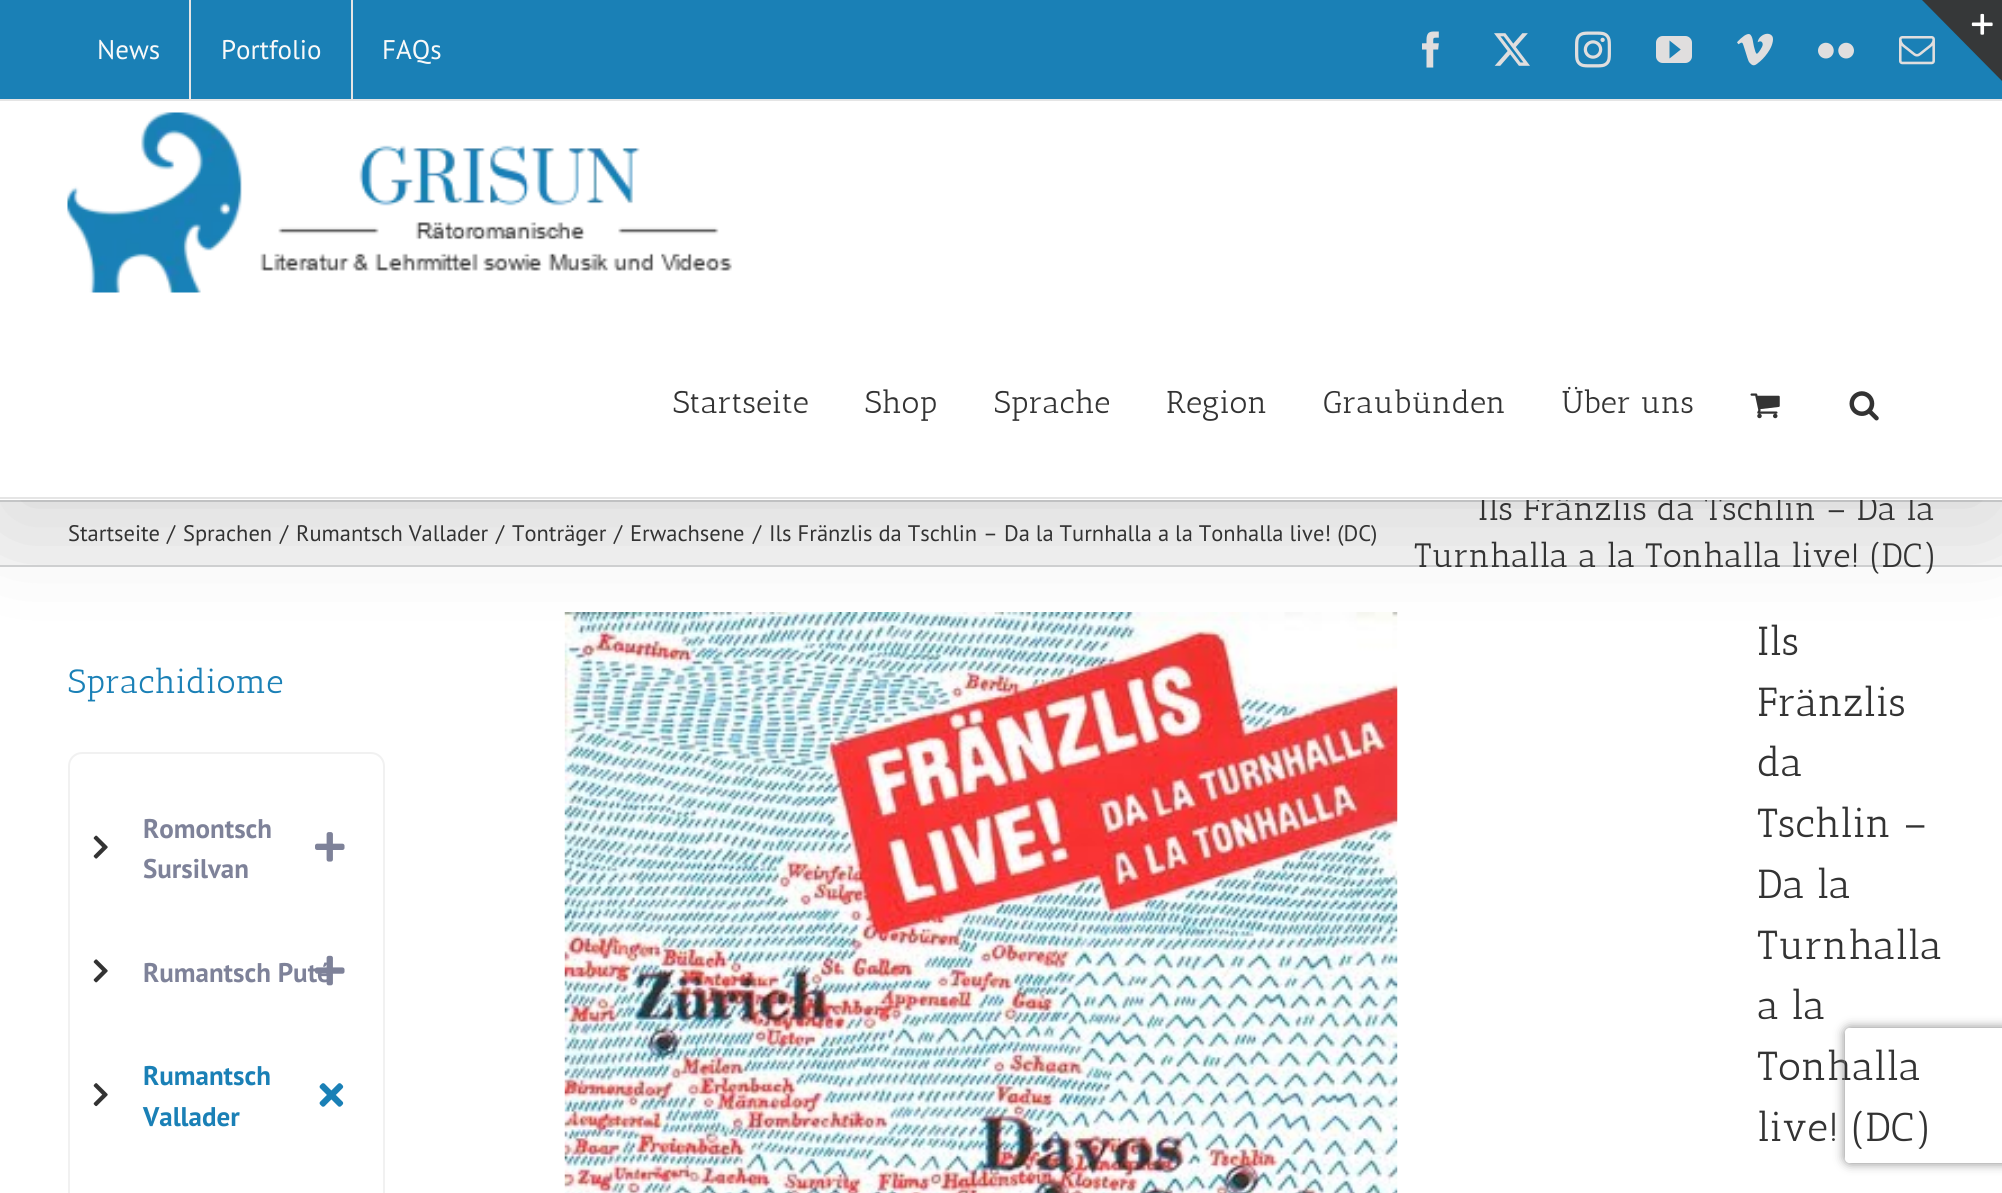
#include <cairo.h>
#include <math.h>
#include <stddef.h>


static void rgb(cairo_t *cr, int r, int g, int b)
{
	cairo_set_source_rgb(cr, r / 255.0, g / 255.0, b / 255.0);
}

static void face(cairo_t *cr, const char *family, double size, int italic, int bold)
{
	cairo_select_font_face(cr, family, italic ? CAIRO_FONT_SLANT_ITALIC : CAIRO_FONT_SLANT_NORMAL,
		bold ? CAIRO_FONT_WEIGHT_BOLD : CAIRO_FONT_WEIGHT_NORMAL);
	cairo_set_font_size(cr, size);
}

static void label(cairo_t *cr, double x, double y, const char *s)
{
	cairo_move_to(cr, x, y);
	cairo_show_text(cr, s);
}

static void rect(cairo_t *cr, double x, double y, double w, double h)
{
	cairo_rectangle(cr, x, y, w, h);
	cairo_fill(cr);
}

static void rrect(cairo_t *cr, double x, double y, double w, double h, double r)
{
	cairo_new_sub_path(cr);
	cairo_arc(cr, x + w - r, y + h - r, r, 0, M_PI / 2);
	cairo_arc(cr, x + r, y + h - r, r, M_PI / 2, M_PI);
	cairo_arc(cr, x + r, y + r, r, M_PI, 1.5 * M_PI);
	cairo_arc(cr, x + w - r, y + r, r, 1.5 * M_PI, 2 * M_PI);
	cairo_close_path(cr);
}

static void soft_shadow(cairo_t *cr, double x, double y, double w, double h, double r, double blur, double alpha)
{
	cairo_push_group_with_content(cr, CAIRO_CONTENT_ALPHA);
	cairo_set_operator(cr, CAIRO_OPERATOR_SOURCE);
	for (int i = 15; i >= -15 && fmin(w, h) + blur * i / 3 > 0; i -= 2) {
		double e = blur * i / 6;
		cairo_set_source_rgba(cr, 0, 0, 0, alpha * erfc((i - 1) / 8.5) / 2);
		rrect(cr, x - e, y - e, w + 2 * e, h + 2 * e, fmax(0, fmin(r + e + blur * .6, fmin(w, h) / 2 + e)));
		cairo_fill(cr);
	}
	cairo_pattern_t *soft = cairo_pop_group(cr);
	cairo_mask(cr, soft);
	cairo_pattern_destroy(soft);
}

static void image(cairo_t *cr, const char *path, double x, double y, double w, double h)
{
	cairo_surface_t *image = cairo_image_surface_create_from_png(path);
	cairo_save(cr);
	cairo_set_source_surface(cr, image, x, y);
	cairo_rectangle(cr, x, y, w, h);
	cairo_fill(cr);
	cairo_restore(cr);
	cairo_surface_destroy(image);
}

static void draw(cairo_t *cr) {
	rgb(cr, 255, 255, 255);
	cairo_paint(cr);
	rgb(cr, 246, 246, 246);
	rect(cr, 0, 502, 2002, 63);
	rgb(cr, 210, 211, 212);
	rect(cr, 0, 500, 2002, 2);
	rect(cr, 0, 565, 2002, 2);
	image(cr, "image17.png", 564, 612, 834, 581);
	rgb(cr, 0, 0, 0);
	soft_shadow(cr, 5, 27, 1993, 491, 0, 56, 0.14);
	rgb(cr, 26, 128, 182);
	rect(cr, 0, 0, 2002, 99);
	rgb(cr, 229, 229, 229);
	rect(cr, 0, 99, 2002, 2);
	face(cr, "PT Sans", 27, 0, 0);
	rgb(cr, 249, 249, 249);
	label(cr, 97, 59, "News");
	rgb(cr, 229, 229, 229);
	rect(cr, 189, 0, 2, 99);
	rgb(cr, 249, 249, 249);
	label(cr, 221, 59, "Portfolio");
	rgb(cr, 229, 229, 229);
	rect(cr, 351, 0, 2, 99);
	rgb(cr, 249, 249, 249);
	label(cr, 382, 59, "FAQs");
	image(cr, "image0.png", 1422, 31, 17, 37);
	image(cr, "image1.png", 1494, 33, 36, 33);
	image(cr, "image2.png", 1575, 31, 36, 37);
	image(cr, "image3.png", 1656, 36, 36, 27);
	image(cr, "image4.png", 1737, 33, 36, 33);
	image(cr, "image5.png", 1818, 42, 36, 17);
	image(cr, "image6.png", 1899, 36, 36, 29);
	face(cr, "Antic Slab", 33.75, 0, 0);
	rgb(cr, 51, 51, 51);
	label(cr, 1478, 520, "Ils Fränzlis da Tschlin – Da la");
	rgb(cr, 255, 255, 255);
	rect(cr, 0, 101, 2002, 399);
	rgb(cr, 229, 229, 229);
	rect(cr, 0, 497, 2002, 2);
	image(cr, "image7.png", 67, 112, 665, 181);
	face(cr, "Antic Slab", 31.5, 0, 0);
	rgb(cr, 51, 51, 51);
	label(cr, 673, 413, "Startseite");
	label(cr, 865, 413, "Shop");
	cairo_save(cr);
	cairo_rectangle(cr, 995, 304, 171, 193);
	cairo_clip(cr);
	label(cr, 994, 413, "Sprache");
	cairo_restore(cr);
	label(cr, 1166, 413, "Region");
	label(cr, 1323, 413, "Graubünden");
	label(cr, 1562, 413, "Über uns");
	image(cr, "image8.png", 1750, 393, 30, 26);
	image(cr, "image9.png", 1849, 391, 30, 30);
	rgb(cr, 54, 56, 57);
	cairo_new_path(cr);
	cairo_move_to(cr, 1922, 0);
	cairo_line_to(cr, 2002, 0);
	cairo_line_to(cr, 2002, 81);
	cairo_close_path(cr);
	cairo_fill(cr);
	image(cr, "image10.png", 1971, 13, 22, 22);
	face(cr, "PT Sans", 22.5, 0, 0);
	rgb(cr, 51, 51, 51);
	label(cr, 68, 541, "Startseite");
	label(cr, 167, 541, "/");
	label(cr, 183, 541, "Sprachen");
	label(cr, 280, 541, "/");
	label(cr, 296, 541, "Rumantsch Vallader");
	label(cr, 496, 541, "/");
	label(cr, 512, 541, "Tonträger");
	label(cr, 614, 541, "/");
	label(cr, 630, 541, "Erwachsene");
	label(cr, 753, 541, "/");
	label(cr, 769, 541, "Ils Fränzlis da Tschlin – Da la Turnhalla a la Tonhalla live! (DC)");
	face(cr, "Antic Slab", 33.75, 0, 0);
	label(cr, 1414, 567, "Turnhalla a la Tonhalla live! (DC)");
	rgb(cr, 26, 128, 182);
	label(cr, 68, 693, "Sprachidiome");
	rrect(cr, 69, 753, 315, 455, 13);
	rgb(cr, 241, 241, 241);
	cairo_stroke(cr);
	face(cr, "PT Sans", 27, 0, 1);
	rgb(cr, 126, 130, 153);
	label(cr, 143, 838, "Romontsch");
	image(cr, "image11.png", 93, 835, 15, 24);
	image(cr, "image12.png", 315, 832, 30, 30);
	label(cr, 143, 878, "Sursilvan");
	image(cr, "image13.png", 93, 959, 15, 24);
	label(cr, 143, 982, "Rumantsch Puté");
	image(cr, "image14.png", 315, 955, 30, 31);
	rgb(cr, 26, 128, 182);
	label(cr, 143, 1085, "Rumantsch");
	image(cr, "image15.png", 93, 1083, 15, 24);
	image(cr, "image16.png", 319, 1083, 25, 24);
	label(cr, 143, 1126, "Vallader");
	face(cr, "Antic Slab", 40.5, 0, 0);
	rgb(cr, 51, 51, 51);
	label(cr, 1757, 655, "Ils");
	label(cr, 1757, 716, "Fränzlis");
	label(cr, 1757, 776, "da");
	label(cr, 1757, 837, "Tschlin –");
	label(cr, 1757, 898, "Da la");
	label(cr, 1757, 959, "Turnhalla");
	label(cr, 1757, 1019, "a la");
	label(cr, 1757, 1080, "Tonhalla");
	label(cr, 1757, 1141, "live! (DC)");
	cairo_save(cr);
	cairo_set_fill_rule(cr, CAIRO_FILL_RULE_EVEN_ODD);
	cairo_new_path(cr);
	cairo_move_to(cr, 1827, 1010);
	cairo_line_to(cr, 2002, 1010);
	cairo_line_to(cr, 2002, 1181);
	cairo_line_to(cr, 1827, 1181);
	cairo_close_path(cr);
	cairo_move_to(cr, 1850, 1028);
	cairo_line_to(cr, 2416, 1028);
	cairo_curve_to(cr, 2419, 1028, 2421, 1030, 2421, 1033);
	cairo_line_to(cr, 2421, 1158);
	cairo_curve_to(cr, 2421, 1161, 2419, 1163, 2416, 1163);
	cairo_line_to(cr, 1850, 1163);
	cairo_curve_to(cr, 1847, 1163, 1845, 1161, 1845, 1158);
	cairo_line_to(cr, 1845, 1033);
	cairo_curve_to(cr, 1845, 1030, 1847, 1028, 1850, 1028);
	cairo_close_path(cr);
	cairo_clip(cr);
	rgb(cr, 128, 128, 128);
	soft_shadow(cr, 1845, 1028, 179, 135, 5, 5.5, 1);
	cairo_restore(cr);
}

int main(void) {
	cairo_surface_t *surface = cairo_image_surface_create(CAIRO_FORMAT_RGB24, 2002, 1193);
	cairo_t *cr = cairo_create(surface);
	cairo_font_options_t *options = cairo_font_options_create();
	cairo_font_options_set_hint_metrics(options, CAIRO_HINT_METRICS_OFF);
	cairo_font_options_set_hint_style(options, CAIRO_HINT_STYLE_NONE);
	cairo_set_font_options(cr, options);
	cairo_set_miter_limit(cr, 4);
	draw(cr);
	cairo_surface_write_to_png(surface, "render.png");
	cairo_font_options_destroy(options);
	cairo_destroy(cr);
	cairo_surface_destroy(surface);
	return 0;
}
